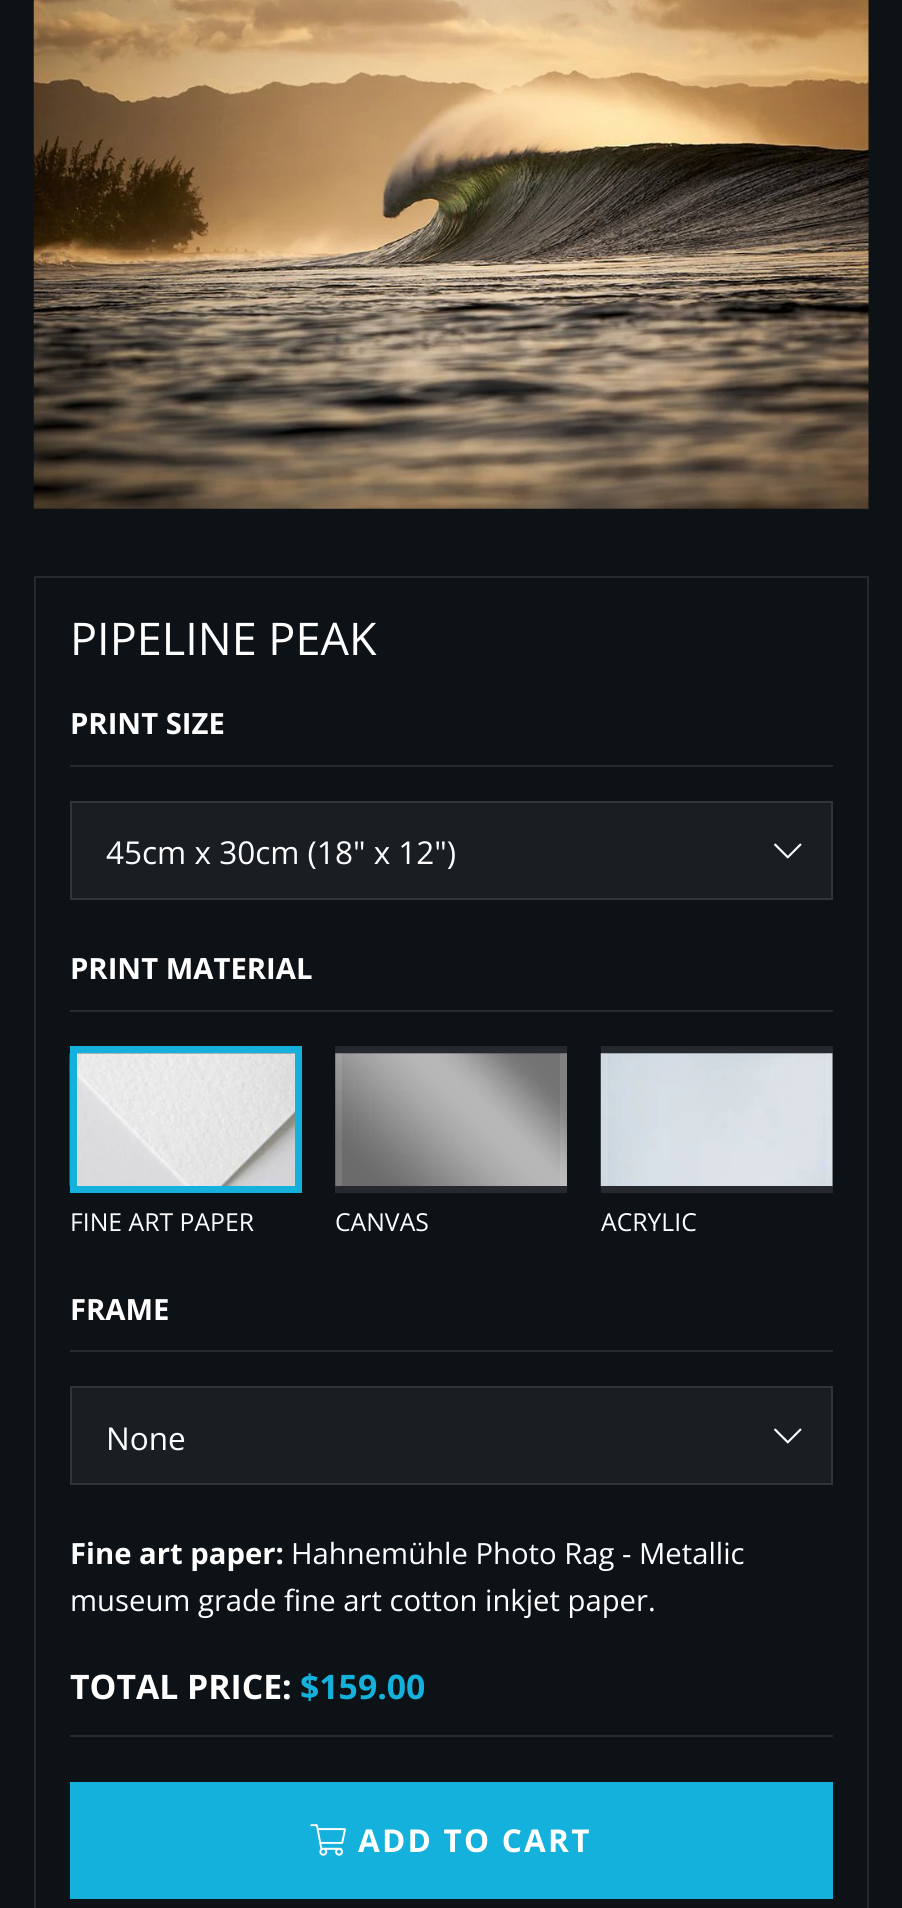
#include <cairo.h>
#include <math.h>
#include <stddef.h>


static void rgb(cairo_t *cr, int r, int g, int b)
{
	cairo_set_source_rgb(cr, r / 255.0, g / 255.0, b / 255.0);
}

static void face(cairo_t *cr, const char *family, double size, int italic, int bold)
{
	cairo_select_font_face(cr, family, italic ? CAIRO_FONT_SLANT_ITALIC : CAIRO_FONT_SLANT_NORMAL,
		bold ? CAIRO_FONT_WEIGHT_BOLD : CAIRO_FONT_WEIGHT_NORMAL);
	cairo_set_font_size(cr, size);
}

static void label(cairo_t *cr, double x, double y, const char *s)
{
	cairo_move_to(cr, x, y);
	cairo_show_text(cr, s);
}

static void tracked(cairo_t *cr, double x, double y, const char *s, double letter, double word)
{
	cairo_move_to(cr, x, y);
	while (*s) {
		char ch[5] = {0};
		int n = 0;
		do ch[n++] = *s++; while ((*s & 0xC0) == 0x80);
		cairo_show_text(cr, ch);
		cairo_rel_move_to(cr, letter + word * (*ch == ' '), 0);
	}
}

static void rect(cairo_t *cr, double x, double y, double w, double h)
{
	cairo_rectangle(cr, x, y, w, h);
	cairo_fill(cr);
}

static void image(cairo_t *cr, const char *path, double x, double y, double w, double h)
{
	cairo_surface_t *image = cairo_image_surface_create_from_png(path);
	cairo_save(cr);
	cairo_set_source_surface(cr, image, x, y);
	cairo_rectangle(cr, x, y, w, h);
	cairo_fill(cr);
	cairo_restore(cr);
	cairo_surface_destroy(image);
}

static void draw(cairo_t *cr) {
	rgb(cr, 13, 18, 23);
	cairo_paint(cr);
	image(cr, "image0.png", 33, 0, 836, 509);
	cairo_rectangle(cr, 35, 577, 833, 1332);
	rgb(cr, 37, 42, 46);
	cairo_stroke(cr);
	face(cr, "Open Sans", 45, 0, 0);
	rgb(cr, 255, 255, 255);
	label(cr, 70, 655, "PIPELINE PEAK");
	face(cr, "Open Sans", 29.25, 0, 1);
	label(cr, 70, 734, "PRINT SIZE");
	rgb(cr, 37, 42, 46);
	rect(cr, 70, 765, 763, 2);
	rgb(cr, 25, 30, 35);
	cairo_rectangle(cr, 71, 802, 761, 97);
	cairo_fill_preserve(cr);
	rgb(cr, 48, 53, 57);
	cairo_stroke(cr);
	face(cr, "Open Sans", 31.5, 0, 0);
	rgb(cr, 255, 255, 255);
	label(cr, 106, 864, "45cm x 30cm (18\" x 12\")");
	image(cr, "image1.png", 774, 843, 28, 16);
	face(cr, "Open Sans", 29.25, 0, 1);
	label(cr, 70, 979, "PRINT MATERIAL");
	rgb(cr, 37, 42, 46);
	rect(cr, 70, 1010, 763, 2);
	image(cr, "image2.png", 69, 1053, 226, 133);
	cairo_rectangle(cr, 73.5, 1049.5, 225, 140);
	rgb(cr, 19, 177, 220);
	cairo_set_line_width(cr, 7);
	cairo_stroke(cr);
	face(cr, "Open Sans", 24.75, 0, 0);
	rgb(cr, 255, 255, 255);
	label(cr, 70, 1231, "FINE ART PAPER");
	image(cr, "image3.png", 335, 1053, 232, 133);
	cairo_rectangle(cr, 338.5, 1049.5, 225, 140);
	cairo_set_source_rgba(cr, 1, 1, 1, 0.1);
	cairo_stroke(cr);
	rgb(cr, 255, 255, 255);
	label(cr, 335, 1231, "CANVAS");
	image(cr, "image4.png", 600, 1053, 233, 133);
	cairo_rectangle(cr, 604.5, 1049.5, 225, 140);
	cairo_set_source_rgba(cr, 1, 1, 1, 0.1);
	cairo_stroke(cr);
	rgb(cr, 255, 255, 255);
	label(cr, 601, 1231, "ACRYLIC");
	face(cr, "Open Sans", 29.25, 0, 1);
	label(cr, 70, 1320, "FRAME");
	rgb(cr, 37, 42, 46);
	rect(cr, 70, 1350, 763, 2);
	rgb(cr, 25, 30, 35);
	cairo_rectangle(cr, 71, 1387, 761, 97);
	cairo_fill_preserve(cr);
	rgb(cr, 48, 53, 57);
	cairo_set_line_width(cr, 2);
	cairo_stroke(cr);
	face(cr, "Open Sans", 31.5, 0, 0);
	rgb(cr, 255, 255, 255);
	label(cr, 106, 1450, "None");
	image(cr, "image1.png", 774, 1428, 28, 16);
	face(cr, "Open Sans", 29.25, 0, 1);
	label(cr, 70, 1564, "Fine art paper:");
	face(cr, "Open Sans", 29.25, 0, 0);
	label(cr, 291, 1564, "Hahnemühle Photo Rag - Metallic");
	label(cr, 70, 1611, "museum grade fine art cotton inkjet paper.");
	face(cr, "Open Sans", 33.75, 0, 1);
	label(cr, 70, 1699, "TOTAL PRICE:");
	rgb(cr, 19, 177, 220);
	label(cr, 300, 1699, "$159.00");
	rgb(cr, 37, 42, 46);
	rect(cr, 70, 1735, 763, 2);
	rgb(cr, 19, 177, 220);
	rect(cr, 70, 1782, 763, 117);
	image(cr, "image5.png", 310, 1824, 36, 32);
	face(cr, "Open Sans", 31.5, 0, 1);
	rgb(cr, 255, 255, 255);
	tracked(cr, 358, 1852, "ADD TO CART", 2.25, 0);
}

int main(void) {
	cairo_surface_t *surface = cairo_image_surface_create(CAIRO_FORMAT_RGB24, 902, 1908);
	cairo_t *cr = cairo_create(surface);
	cairo_font_options_t *options = cairo_font_options_create();
	cairo_font_options_set_hint_metrics(options, CAIRO_HINT_METRICS_OFF);
	cairo_font_options_set_hint_style(options, CAIRO_HINT_STYLE_NONE);
	cairo_set_font_options(cr, options);
	cairo_set_miter_limit(cr, 4);
	draw(cr);
	cairo_surface_write_to_png(surface, "render.png");
	cairo_font_options_destroy(options);
	cairo_destroy(cr);
	cairo_surface_destroy(surface);
	return 0;
}
